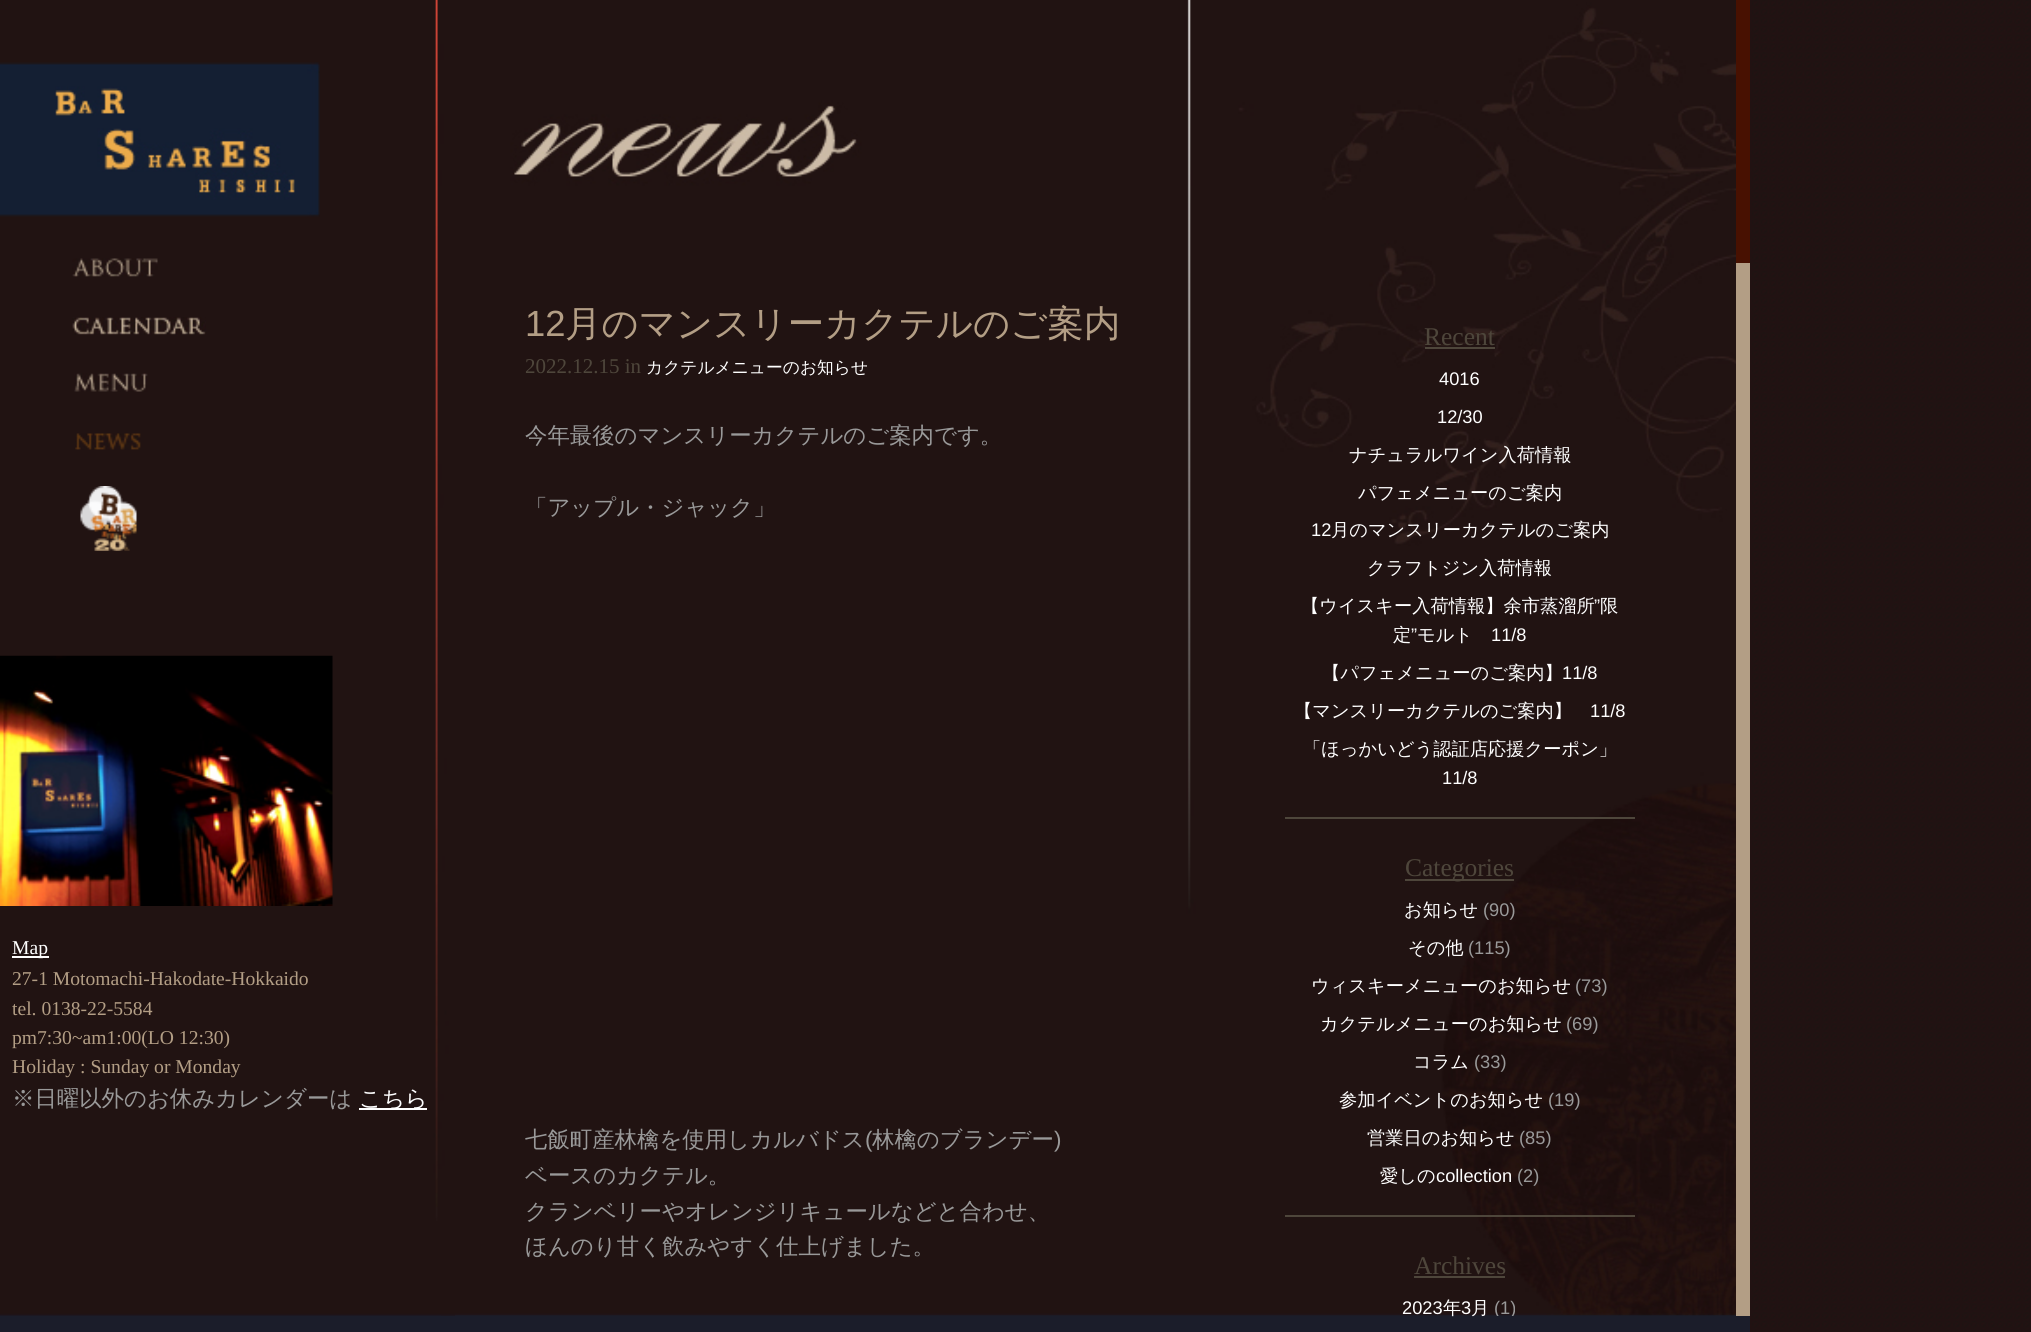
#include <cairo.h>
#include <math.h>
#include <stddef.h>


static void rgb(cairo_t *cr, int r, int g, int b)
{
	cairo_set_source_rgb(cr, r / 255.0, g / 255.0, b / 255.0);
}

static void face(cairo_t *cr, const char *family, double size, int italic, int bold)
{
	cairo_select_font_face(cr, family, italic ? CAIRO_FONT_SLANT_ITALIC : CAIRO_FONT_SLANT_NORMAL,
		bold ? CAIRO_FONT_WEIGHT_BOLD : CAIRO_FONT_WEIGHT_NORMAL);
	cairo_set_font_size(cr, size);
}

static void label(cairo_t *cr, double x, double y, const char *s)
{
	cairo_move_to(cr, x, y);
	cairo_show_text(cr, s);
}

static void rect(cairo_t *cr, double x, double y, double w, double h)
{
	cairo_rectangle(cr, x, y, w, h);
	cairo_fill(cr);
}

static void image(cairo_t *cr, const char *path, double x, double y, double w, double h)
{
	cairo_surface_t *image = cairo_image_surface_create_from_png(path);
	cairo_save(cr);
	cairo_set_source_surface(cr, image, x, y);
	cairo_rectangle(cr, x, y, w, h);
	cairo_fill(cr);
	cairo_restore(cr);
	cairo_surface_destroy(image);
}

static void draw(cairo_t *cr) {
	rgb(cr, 255, 255, 255);
	cairo_paint(cr);
	image(cr, "image0.png", 1750, 0, 281, 1332);
	rgb(cr, 27, 29, 42);
	rect(cr, 0, 1315, 1750, 17);
	image(cr, "image9.png", 441, 0, 1295, 1316);
	image(cr, "image1.png", 0, 0, 455, 1316);
	image(cr, "image2.png", 0, 62, 320, 155);
	image(cr, "image3.png", 72, 258, 86, 19);
	image(cr, "image4.png", 72, 317, 134, 18);
	image(cr, "image5.png", 74, 373, 74, 19);
	image(cr, "image6.png", 75, 433, 66, 17);
	image(cr, "image7.png", 80, 486, 57, 65);
	image(cr, "image8.png", 0, 655, 333, 251);
	rgb(cr, 255, 255, 255);
	rect(cr, 12, 956, 37, 2);
	face(cr, "Liberation Serif", 19.6, 0, 0);
	label(cr, 12, 954, "Map");
	rgb(cr, 179, 158, 133);
	label(cr, 12, 985, "27-1 Motomachi-Hakodate-Hokkaido");
	label(cr, 12, 1015, "tel. 0138-22-5584");
	label(cr, 12, 1044, "pm7:30~am1:00(LO 12:30)");
	label(cr, 12, 1073, "Holiday : Sunday or Monday");
	face(cr, "WenQuanYi Zen Hei Medium", 22.4, 0, 0);
	rgb(cr, 153, 153, 153);
	label(cr, 12, 1106, "※日曜以外のお休みカレンダーは");
	rgb(cr, 255, 255, 255);
	rect(cr, 359, 1108, 68, 2);
	label(cr, 359, 1106, "こちら");
	face(cr, "Liberation Sans", 36.4, 0, 0);
	rgb(cr, 179, 158, 133);
	label(cr, 525, 336, "12");
	face(cr, "WenQuanYi Zen Hei Medium", 36.4, 0, 0);
	label(cr, 565, 336, "月のマンスリーカクテルのご案内");
	face(cr, "Liberation Serif", 21, 0, 0);
	rgb(cr, 78, 70, 59);
	label(cr, 525, 373, "2022.12.15 in");
	face(cr, "WenQuanYi Zen Hei Medium", 16.75, 0, 0);
	rgb(cr, 255, 255, 255);
	label(cr, 646, 373, "カクテルメニューのお知らせ");
	face(cr, "WenQuanYi Zen Hei Medium", 22.4, 0, 0);
	rgb(cr, 153, 153, 153);
	label(cr, 525, 443, "今年最後のマンスリーカクテルのご案内です。");
	label(cr, 525, 515, "「アップル・ジャック」");
	label(cr, 525, 1147, "七飯町産林檎を使用しカルバドス");
	face(cr, "Liberation Sans", 22.4, 0, 0);
	label(cr, 865, 1147, "(");
	face(cr, "WenQuanYi Zen Hei Medium", 22.4, 0, 0);
	label(cr, 872, 1147, "林檎のブランデー");
	face(cr, "Liberation Sans", 22.4, 0, 0);
	label(cr, 1054, 1147, ")");
	face(cr, "WenQuanYi Zen Hei Medium", 22.4, 0, 0);
	label(cr, 525, 1183, "ベースのカクテル。");
	label(cr, 525, 1219, "クランベリーやオレンジリキュールなどと合わせ、");
	label(cr, 525, 1254, "ほんのり甘く飲みやすく仕上げました。");
	rgb(cr, 78, 70, 59);
	rect(cr, 1285, 817, 350, 2);
	face(cr, "Liberation Serif", 25.5, 0, 0);
	label(cr, 1424, 345, "Recent");
	rect(cr, 1425, 347, 70, 2);
	face(cr, "Liberation Sans", 18.25, 0, 0);
	rgb(cr, 255, 255, 255);
	label(cr, 1439, 385, "4016");
	label(cr, 1437, 423, "12/30");
	face(cr, "WenQuanYi Zen Hei Medium", 18.25, 0, 0);
	label(cr, 1349, 461, "ナチュラルワイン入荷情報");
	label(cr, 1358, 499, "パフェメニューのご案内");
	face(cr, "Liberation Sans", 18.25, 0, 0);
	label(cr, 1311, 536, "12");
	face(cr, "WenQuanYi Zen Hei Medium", 18.25, 0, 0);
	label(cr, 1331, 536, "月のマンスリーカクテルのご案内");
	label(cr, 1367, 574, "クラフトジン入荷情報");
	label(cr, 1301, 612, "【ウイスキー入荷情報】余市蒸溜所");
	face(cr, "Liberation Sans", 18.25, 0, 0);
	label(cr, 1594, 612, "”");
	face(cr, "WenQuanYi Zen Hei Medium", 18.25, 0, 0);
	label(cr, 1600, 612, "限");
	label(cr, 1393, 641, "定");
	face(cr, "Liberation Sans", 18.25, 0, 0);
	label(cr, 1411, 641, "”");
	face(cr, "WenQuanYi Zen Hei Medium", 18.25, 0, 0);
	label(cr, 1417, 641, "モルト");
	face(cr, "Liberation Sans", 18.25, 0, 0);
	label(cr, 1491, 641, "11/8");
	face(cr, "WenQuanYi Zen Hei Medium", 18.25, 0, 0);
	label(cr, 1322, 679, "【パフェメニューのご案内】");
	face(cr, "Liberation Sans", 18.25, 0, 0);
	label(cr, 1562, 679, "11/8");
	face(cr, "WenQuanYi Zen Hei Medium", 18.25, 0, 0);
	label(cr, 1294, 717, "【マンスリーカクテルのご案内】");
	face(cr, "Liberation Sans", 18.25, 0, 0);
	label(cr, 1590, 717, "11/8");
	face(cr, "WenQuanYi Zen Hei Medium", 18.25, 0, 0);
	label(cr, 1303, 755, "「ほっかいどう認証店応援クーポン」");
	face(cr, "Liberation Sans", 18.25, 0, 0);
	label(cr, 1442, 784, "11/8");
	rgb(cr, 78, 70, 59);
	rect(cr, 1285, 1215, 350, 2);
	rect(cr, 1405, 879, 109, 2);
	face(cr, "Liberation Serif", 25.5, 0, 0);
	label(cr, 1405, 876, "Categories");
	face(cr, "WenQuanYi Zen Hei Medium", 18.25, 0, 0);
	rgb(cr, 255, 255, 255);
	label(cr, 1404, 916, "お知らせ");
	face(cr, "Liberation Sans", 18.25, 0, 0);
	rgb(cr, 153, 153, 153);
	label(cr, 1483, 916, "(90)");
	face(cr, "WenQuanYi Zen Hei Medium", 18.25, 0, 0);
	rgb(cr, 255, 255, 255);
	label(cr, 1408, 954, "その他");
	face(cr, "Liberation Sans", 18.25, 0, 0);
	rgb(cr, 153, 153, 153);
	label(cr, 1468, 954, "(115)");
	face(cr, "WenQuanYi Zen Hei Medium", 18.25, 0, 0);
	rgb(cr, 255, 255, 255);
	label(cr, 1311, 992, "ウィスキーメニューのお知らせ");
	face(cr, "Liberation Sans", 18.25, 0, 0);
	rgb(cr, 153, 153, 153);
	label(cr, 1575, 992, "(73)");
	face(cr, "WenQuanYi Zen Hei Medium", 18.25, 0, 0);
	rgb(cr, 255, 255, 255);
	label(cr, 1320, 1030, "カクテルメニューのお知らせ");
	face(cr, "Liberation Sans", 18.25, 0, 0);
	rgb(cr, 153, 153, 153);
	label(cr, 1566, 1030, "(69)");
	face(cr, "WenQuanYi Zen Hei Medium", 18.25, 0, 0);
	rgb(cr, 255, 255, 255);
	label(cr, 1413, 1068, "コラム");
	face(cr, "Liberation Sans", 18.25, 0, 0);
	rgb(cr, 153, 153, 153);
	label(cr, 1474, 1068, "(33)");
	face(cr, "WenQuanYi Zen Hei Medium", 18.25, 0, 0);
	rgb(cr, 255, 255, 255);
	label(cr, 1339, 1106, "参加イベントのお知らせ");
	face(cr, "Liberation Sans", 18.25, 0, 0);
	rgb(cr, 153, 153, 153);
	label(cr, 1548, 1106, "(19)");
	face(cr, "WenQuanYi Zen Hei Medium", 18.25, 0, 0);
	rgb(cr, 255, 255, 255);
	label(cr, 1367, 1144, "営業日のお知らせ");
	face(cr, "Liberation Sans", 18.25, 0, 0);
	rgb(cr, 153, 153, 153);
	label(cr, 1519, 1144, "(85)");
	face(cr, "WenQuanYi Zen Hei Medium", 18.25, 0, 0);
	rgb(cr, 255, 255, 255);
	label(cr, 1380, 1182, "愛しの");
	face(cr, "Liberation Sans", 18.25, 0, 0);
	label(cr, 1436, 1182, "collection");
	rgb(cr, 153, 153, 153);
	label(cr, 1517, 1182, "(2)");
	face(cr, "Liberation Serif", 25.5, 0, 0);
	rgb(cr, 78, 70, 59);
	label(cr, 1414, 1274, "Archives");
	rect(cr, 1414, 1276, 91, 2);
	face(cr, "Liberation Sans", 18.25, 0, 0);
	rgb(cr, 255, 255, 255);
	label(cr, 1402, 1314, "2023");
	face(cr, "WenQuanYi Zen Hei Medium", 18.25, 0, 0);
	label(cr, 1443, 1314, "年");
	face(cr, "Liberation Sans", 18.25, 0, 0);
	label(cr, 1461, 1314, "3");
	face(cr, "WenQuanYi Zen Hei Medium", 18.25, 0, 0);
	label(cr, 1471, 1314, "月");
	cairo_save(cr);
	cairo_rectangle(cr, 0, 0, 1750, 1316);
	cairo_clip(cr);
	face(cr, "Liberation Sans", 18.25, 0, 0);
	rgb(cr, 153, 153, 153);
	label(cr, 1494, 1314, "(1)");
	cairo_restore(cr);
	rgb(cr, 179, 158, 133);
	rect(cr, 1736, 263, 14, 1053);
	rgb(cr, 72, 17, 1);
	rect(cr, 1736, 0, 14, 263);
}

int main(void) {
	cairo_surface_t *surface = cairo_image_surface_create(CAIRO_FORMAT_RGB24, 2031, 1332);
	cairo_t *cr = cairo_create(surface);
	cairo_font_options_t *options = cairo_font_options_create();
	cairo_font_options_set_hint_metrics(options, CAIRO_HINT_METRICS_OFF);
	cairo_font_options_set_hint_style(options, CAIRO_HINT_STYLE_NONE);
	cairo_set_font_options(cr, options);
	cairo_set_miter_limit(cr, 4);
	draw(cr);
	cairo_surface_write_to_png(surface, "render.png");
	cairo_font_options_destroy(options);
	cairo_destroy(cr);
	cairo_surface_destroy(surface);
	return 0;
}
